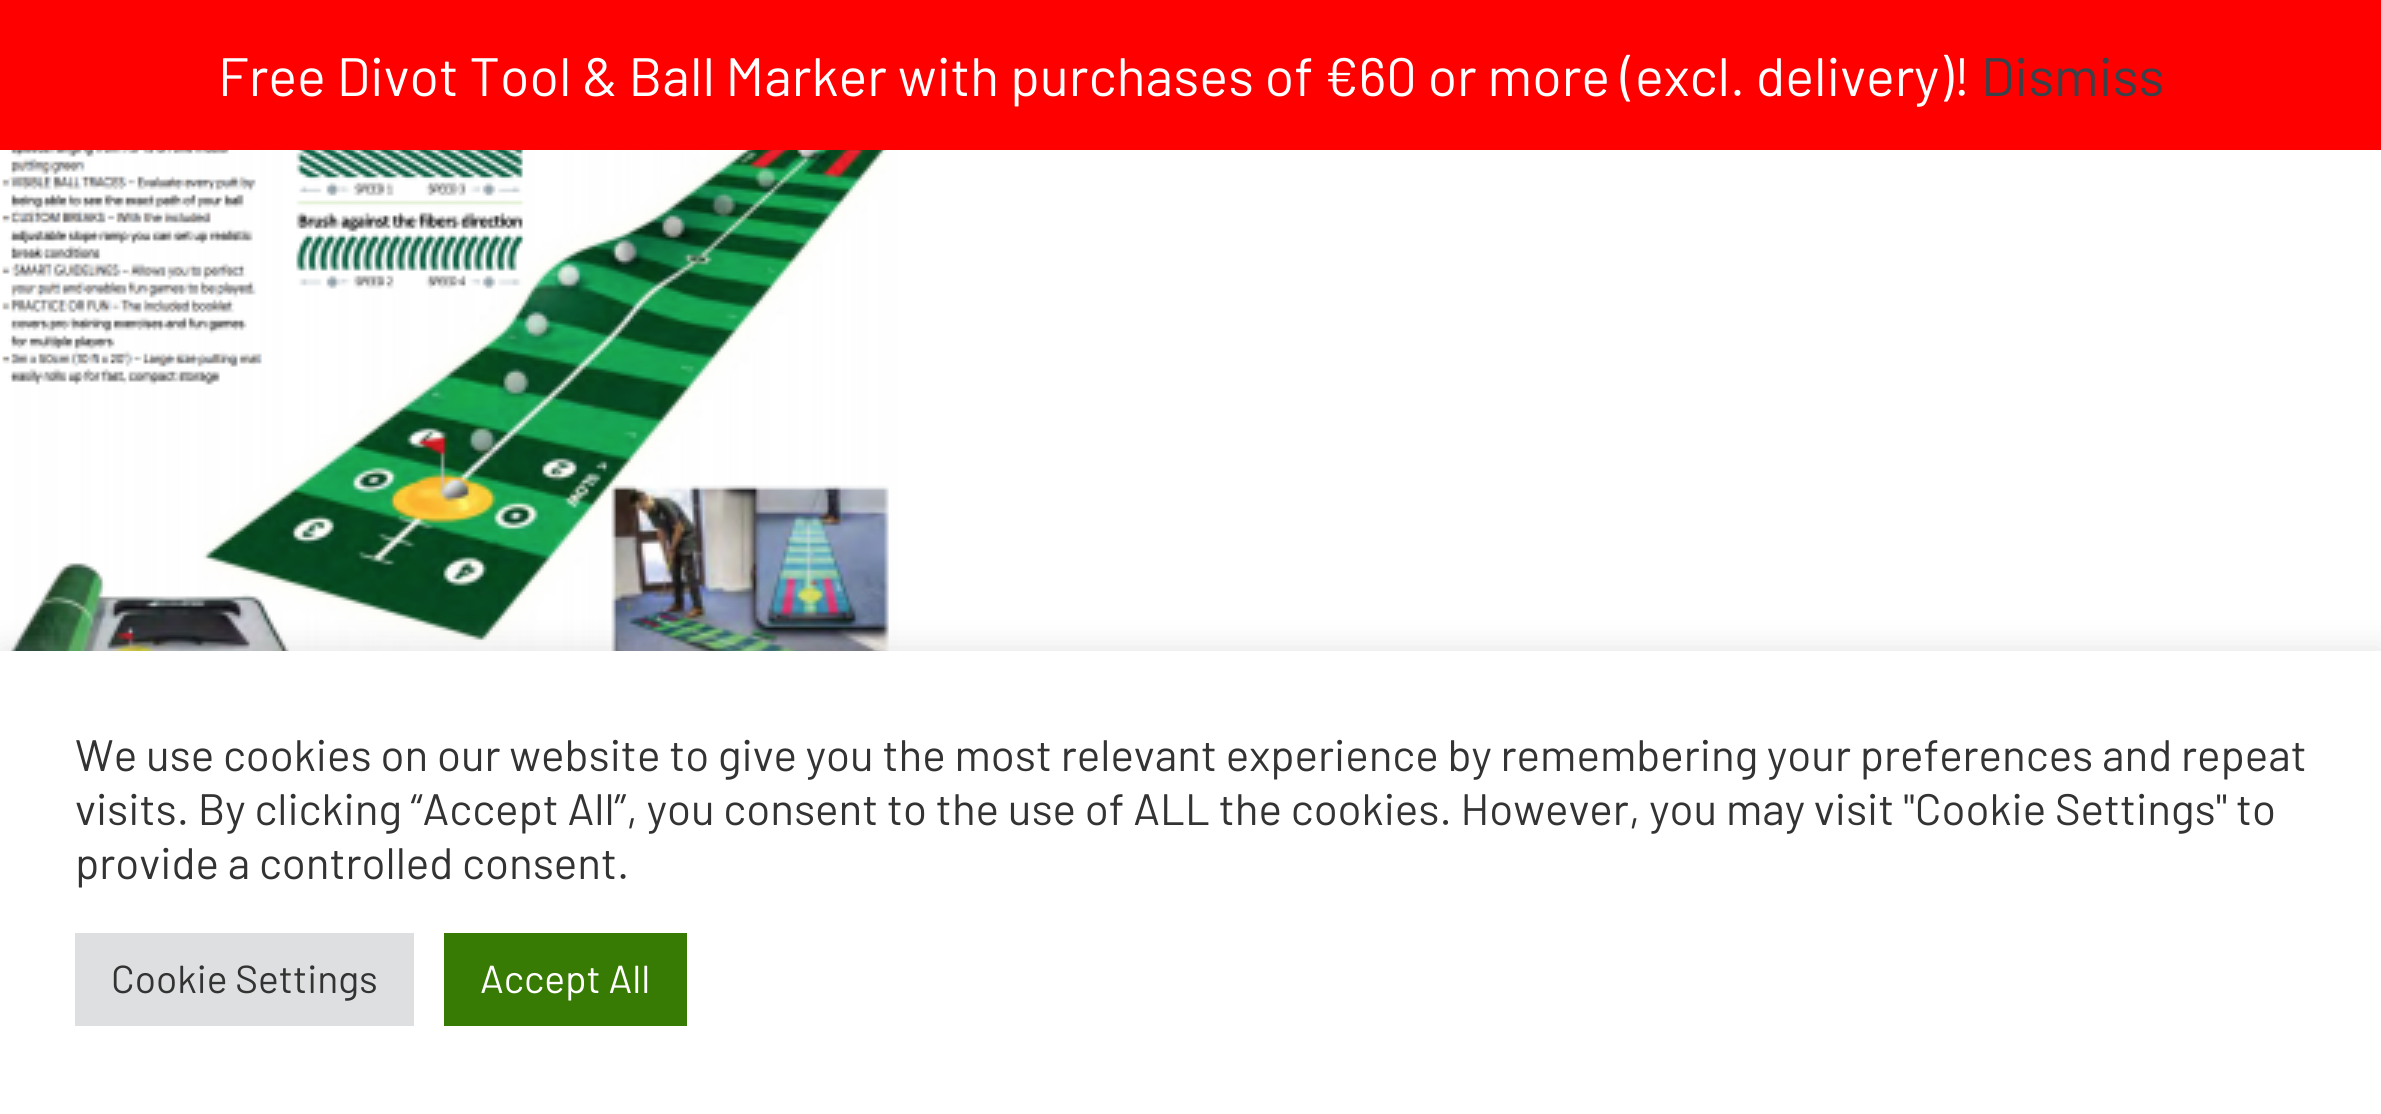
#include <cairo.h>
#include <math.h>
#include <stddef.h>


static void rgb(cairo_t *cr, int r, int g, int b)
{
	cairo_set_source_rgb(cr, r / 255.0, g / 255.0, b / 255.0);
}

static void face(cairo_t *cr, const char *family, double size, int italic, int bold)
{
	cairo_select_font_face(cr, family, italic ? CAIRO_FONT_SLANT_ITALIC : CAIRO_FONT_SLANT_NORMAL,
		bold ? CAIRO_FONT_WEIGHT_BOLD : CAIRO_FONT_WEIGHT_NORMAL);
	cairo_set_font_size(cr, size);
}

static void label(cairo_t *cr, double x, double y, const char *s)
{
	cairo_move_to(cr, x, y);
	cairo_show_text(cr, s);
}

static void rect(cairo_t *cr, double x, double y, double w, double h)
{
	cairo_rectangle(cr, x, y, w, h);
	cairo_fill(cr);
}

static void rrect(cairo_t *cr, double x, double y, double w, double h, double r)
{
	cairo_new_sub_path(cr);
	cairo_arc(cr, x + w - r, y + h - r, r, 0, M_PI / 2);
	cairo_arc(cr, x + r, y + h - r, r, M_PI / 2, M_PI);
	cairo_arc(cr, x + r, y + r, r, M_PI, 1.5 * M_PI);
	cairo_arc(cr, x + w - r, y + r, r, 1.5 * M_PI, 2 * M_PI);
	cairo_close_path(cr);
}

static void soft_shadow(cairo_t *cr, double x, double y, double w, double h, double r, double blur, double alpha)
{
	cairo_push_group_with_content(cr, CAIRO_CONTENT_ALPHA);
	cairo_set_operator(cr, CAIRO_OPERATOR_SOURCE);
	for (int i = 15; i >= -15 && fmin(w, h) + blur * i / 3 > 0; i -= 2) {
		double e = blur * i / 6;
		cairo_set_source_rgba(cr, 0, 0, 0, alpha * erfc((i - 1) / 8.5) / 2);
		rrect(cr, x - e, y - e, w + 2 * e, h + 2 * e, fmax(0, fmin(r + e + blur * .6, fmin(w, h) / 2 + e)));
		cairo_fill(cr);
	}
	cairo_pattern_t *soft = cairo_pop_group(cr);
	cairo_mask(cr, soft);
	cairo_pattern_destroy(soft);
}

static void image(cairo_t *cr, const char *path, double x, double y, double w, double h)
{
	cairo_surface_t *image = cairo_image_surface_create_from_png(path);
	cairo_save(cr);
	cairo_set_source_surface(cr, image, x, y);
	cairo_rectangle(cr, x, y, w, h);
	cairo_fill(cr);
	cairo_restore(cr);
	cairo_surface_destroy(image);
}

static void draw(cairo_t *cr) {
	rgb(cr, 255, 255, 255);
	cairo_paint(cr);
	rgb(cr, 255, 0, 0);
	rect(cr, 0, 0, 2381, 150);
	face(cr, "Barlow", 54, 0, 0);
	rgb(cr, 255, 255, 255);
	label(cr, 218, 96, "Free Divot Tool & Ball Marker with purchases of €60 or more (excl. delivery)!");
	rgb(cr, 58, 65, 73);
	label(cr, 1981, 96, "Dismiss");
	image(cr, "image0.png", 0, 150, 900, 501);
	rgb(cr, 172, 171, 171);
	soft_shadow(cr, 0, 648, 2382, 465, 0, 15, 0.3);
	rgb(cr, 255, 255, 255);
	rect(cr, 0, 651, 2381, 463);
	face(cr, "Barlow", 44, 0, 0);
	rgb(cr, 51, 51, 51);
	label(cr, 75, 771, "We use cookies on our website to give you the most relevant experience by remembering your preferences and repeat");
	label(cr, 75, 825, "visits. By clicking “Accept All”, you consent to the use of ALL the cookies. However, you may visit \"Cookie Settings\" to");
	label(cr, 75, 879, "provide a controlled consent.");
	rgb(cr, 222, 223, 224);
	rect(cr, 75, 933, 339, 93);
	face(cr, "Barlow", 39, 0, 0);
	rgb(cr, 51, 51, 51);
	label(cr, 111, 993, "Cookie Settings");
	rgb(cr, 55, 122, 4);
	rect(cr, 444, 933, 243, 93);
	rgb(cr, 255, 255, 255);
	label(cr, 480, 993, "Accept All");
}

int main(void) {
	cairo_surface_t *surface = cairo_image_surface_create(CAIRO_FORMAT_RGB24, 2381, 1114);
	cairo_t *cr = cairo_create(surface);
	cairo_font_options_t *options = cairo_font_options_create();
	cairo_font_options_set_hint_metrics(options, CAIRO_HINT_METRICS_OFF);
	cairo_font_options_set_hint_style(options, CAIRO_HINT_STYLE_NONE);
	cairo_set_font_options(cr, options);
	cairo_set_miter_limit(cr, 4);
	draw(cr);
	cairo_surface_write_to_png(surface, "render.png");
	cairo_font_options_destroy(options);
	cairo_destroy(cr);
	cairo_surface_destroy(surface);
	return 0;
}
